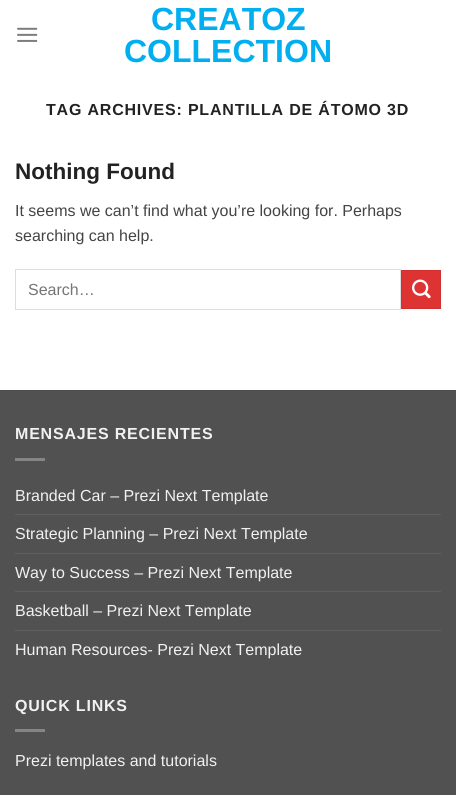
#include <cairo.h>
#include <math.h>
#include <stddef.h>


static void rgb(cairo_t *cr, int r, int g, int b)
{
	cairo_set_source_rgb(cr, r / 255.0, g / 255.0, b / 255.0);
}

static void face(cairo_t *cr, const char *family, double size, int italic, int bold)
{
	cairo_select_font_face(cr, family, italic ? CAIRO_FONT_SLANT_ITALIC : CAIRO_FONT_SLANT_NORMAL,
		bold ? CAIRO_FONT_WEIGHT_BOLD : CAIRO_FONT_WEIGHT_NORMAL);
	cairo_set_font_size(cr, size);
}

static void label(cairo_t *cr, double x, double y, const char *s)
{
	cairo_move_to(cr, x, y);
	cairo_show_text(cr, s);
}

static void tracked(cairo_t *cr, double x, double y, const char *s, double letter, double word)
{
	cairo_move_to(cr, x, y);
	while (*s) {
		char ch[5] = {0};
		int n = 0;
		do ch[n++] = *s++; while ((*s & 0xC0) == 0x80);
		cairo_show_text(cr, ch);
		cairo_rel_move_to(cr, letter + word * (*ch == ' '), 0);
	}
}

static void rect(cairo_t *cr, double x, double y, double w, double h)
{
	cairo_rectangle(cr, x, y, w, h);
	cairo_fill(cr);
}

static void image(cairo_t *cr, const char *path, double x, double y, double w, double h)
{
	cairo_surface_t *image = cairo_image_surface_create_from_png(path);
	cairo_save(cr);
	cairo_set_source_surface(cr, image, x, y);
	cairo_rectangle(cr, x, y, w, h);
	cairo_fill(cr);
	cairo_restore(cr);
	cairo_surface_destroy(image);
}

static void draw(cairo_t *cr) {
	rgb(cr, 255, 255, 255);
	cairo_paint(cr);
	image(cr, "image0.png", 17, 27, 21, 15);
	face(cr, "Liberation Sans", 32, 0, 1);
	rgb(cr, 1, 174, 239);
	label(cr, 151, 30, "CREATOZ");
	label(cr, 124, 62, "COLLECTION");
	face(cr, "Liberation Sans", 16, 0, 1);
	rgb(cr, 34, 34, 34);
	tracked(cr, 46, 115, "TAG ARCHIVES: PLANTILLA DE ÁTOMO 3D", 0.8, 0);
	face(cr, "Liberation Sans", 22.5, 0, 1);
	label(cr, 15, 179, "Nothing Found");
	face(cr, "Liberation Sans", 16, 0, 0);
	rgb(cr, 68, 68, 68);
	label(cr, 15, 216, "It seems we can’t find what you’re looking for. Perhaps");
	label(cr, 15, 241, "searching can help.");
	cairo_rectangle(cr, 15.5, 269.5, 385, 40);
	rgb(cr, 221, 221, 221);
	cairo_set_line_width(cr, 1);
	cairo_stroke(cr);
	rgb(cr, 117, 117, 117);
	label(cr, 28, 295, "Search…");
	rgb(cr, 221, 51, 51);
	cairo_rectangle(cr, 401.5, 270.5, 39, 38);
	cairo_fill_preserve(cr);
	rgb(cr, 210, 48, 48);
	cairo_stroke(cr);
	image(cr, "image1.png", 412, 279, 19, 20);
	rgb(cr, 81, 81, 81);
	rect(cr, 0, 391, 456, 404);
	rgb(cr, 77, 77, 77);
	rect(cr, 0, 390, 456, 1);
	face(cr, "Liberation Sans", 16, 0, 1);
	rgb(cr, 241, 241, 241);
	tracked(cr, 15, 439, "MENSAJES RECIENTES", 0.8, 0);
	rgb(cr, 133, 133, 133);
	rect(cr, 15, 458, 30, 3);
	face(cr, "Liberation Sans", 16, 0, 0);
	rgb(cr, 241, 241, 241);
	label(cr, 15, 501, "Branded Car – Prezi Next Template");
	rgb(cr, 95, 95, 95);
	rect(cr, 15, 514, 426, 1);
	rgb(cr, 241, 241, 241);
	label(cr, 15, 539, "Strategic Planning – Prezi Next Template");
	rgb(cr, 95, 95, 95);
	rect(cr, 15, 553, 426, 1);
	rgb(cr, 241, 241, 241);
	label(cr, 15, 578, "Way to Success – Prezi Next Template");
	rgb(cr, 95, 95, 95);
	rect(cr, 15, 591, 426, 1);
	rgb(cr, 241, 241, 241);
	label(cr, 15, 616, "Basketball – Prezi Next Template");
	rgb(cr, 95, 95, 95);
	rect(cr, 15, 630, 426, 1);
	rgb(cr, 241, 241, 241);
	label(cr, 15, 655, "Human Resources- Prezi Next Template");
	face(cr, "Liberation Sans", 16, 0, 1);
	tracked(cr, 15, 711, "QUICK LINKS", 0.8, 0);
	rgb(cr, 133, 133, 133);
	rect(cr, 15, 729, 30, 3);
	face(cr, "Liberation Sans", 16, 0, 0);
	rgb(cr, 241, 241, 241);
	label(cr, 15, 766, "Prezi templates and tutorials");
}

int main(void) {
	cairo_surface_t *surface = cairo_image_surface_create(CAIRO_FORMAT_RGB24, 456, 795);
	cairo_t *cr = cairo_create(surface);
	cairo_font_options_t *options = cairo_font_options_create();
	cairo_font_options_set_hint_metrics(options, CAIRO_HINT_METRICS_OFF);
	cairo_font_options_set_hint_style(options, CAIRO_HINT_STYLE_NONE);
	cairo_set_font_options(cr, options);
	cairo_set_miter_limit(cr, 4);
	draw(cr);
	cairo_surface_write_to_png(surface, "render.png");
	cairo_font_options_destroy(options);
	cairo_destroy(cr);
	cairo_surface_destroy(surface);
	return 0;
}
